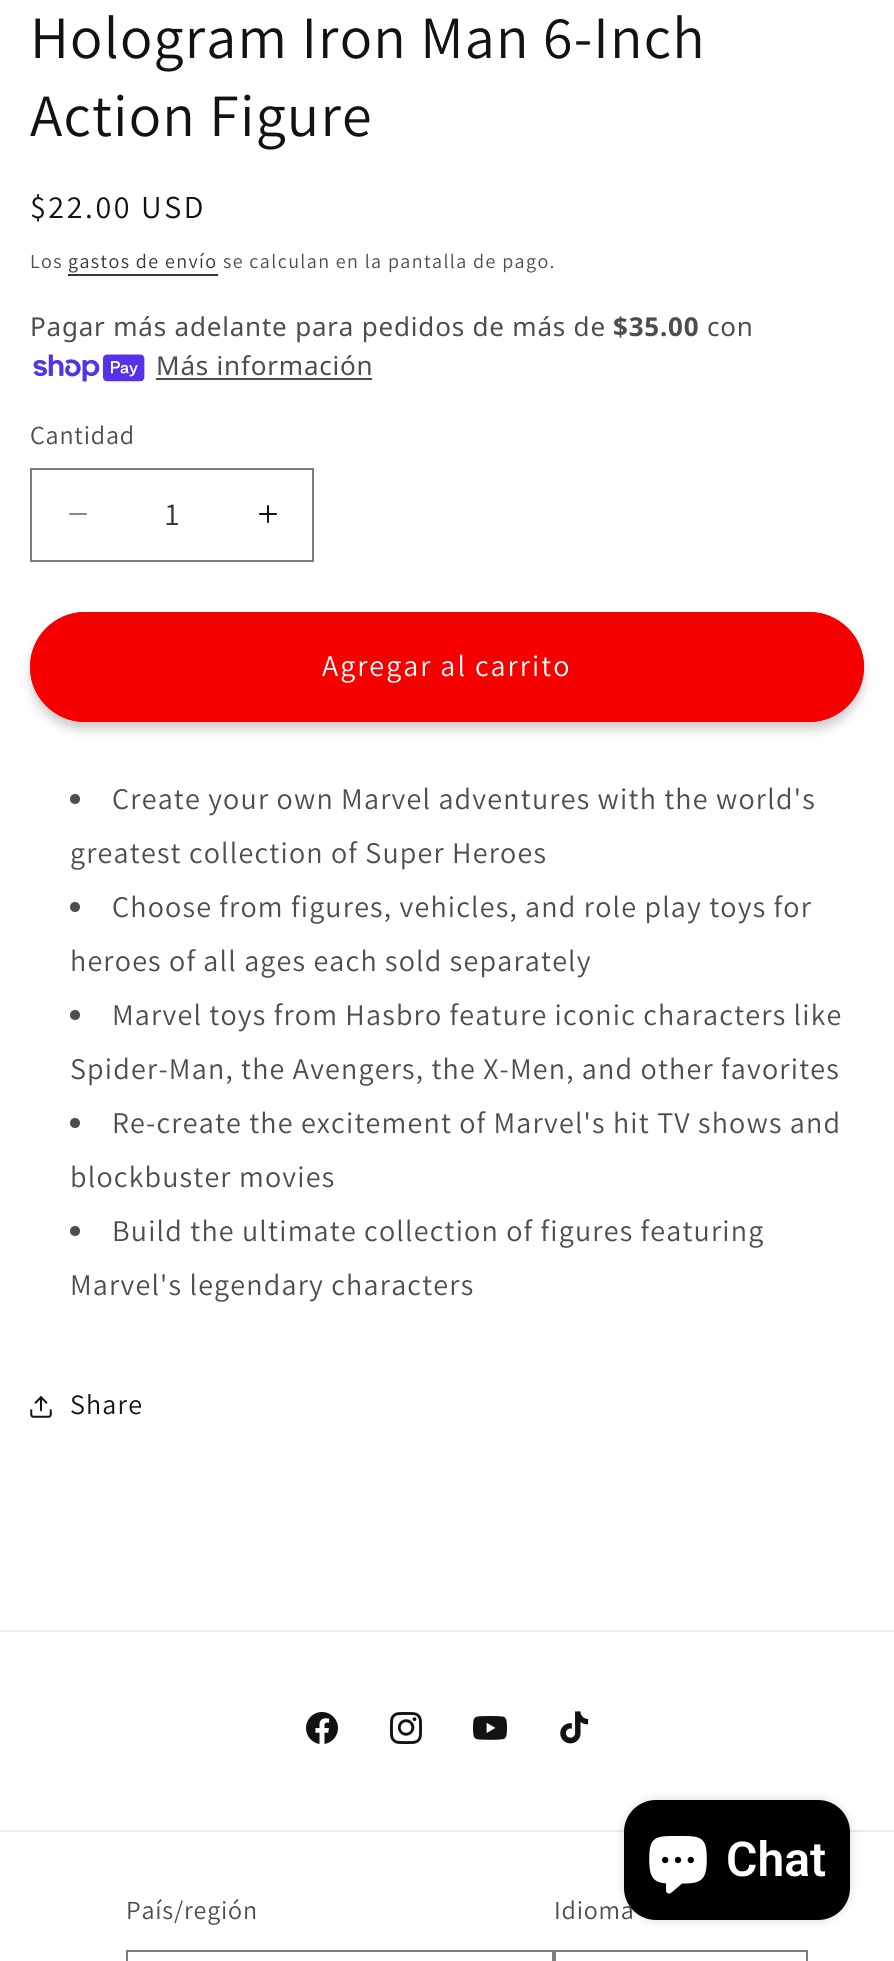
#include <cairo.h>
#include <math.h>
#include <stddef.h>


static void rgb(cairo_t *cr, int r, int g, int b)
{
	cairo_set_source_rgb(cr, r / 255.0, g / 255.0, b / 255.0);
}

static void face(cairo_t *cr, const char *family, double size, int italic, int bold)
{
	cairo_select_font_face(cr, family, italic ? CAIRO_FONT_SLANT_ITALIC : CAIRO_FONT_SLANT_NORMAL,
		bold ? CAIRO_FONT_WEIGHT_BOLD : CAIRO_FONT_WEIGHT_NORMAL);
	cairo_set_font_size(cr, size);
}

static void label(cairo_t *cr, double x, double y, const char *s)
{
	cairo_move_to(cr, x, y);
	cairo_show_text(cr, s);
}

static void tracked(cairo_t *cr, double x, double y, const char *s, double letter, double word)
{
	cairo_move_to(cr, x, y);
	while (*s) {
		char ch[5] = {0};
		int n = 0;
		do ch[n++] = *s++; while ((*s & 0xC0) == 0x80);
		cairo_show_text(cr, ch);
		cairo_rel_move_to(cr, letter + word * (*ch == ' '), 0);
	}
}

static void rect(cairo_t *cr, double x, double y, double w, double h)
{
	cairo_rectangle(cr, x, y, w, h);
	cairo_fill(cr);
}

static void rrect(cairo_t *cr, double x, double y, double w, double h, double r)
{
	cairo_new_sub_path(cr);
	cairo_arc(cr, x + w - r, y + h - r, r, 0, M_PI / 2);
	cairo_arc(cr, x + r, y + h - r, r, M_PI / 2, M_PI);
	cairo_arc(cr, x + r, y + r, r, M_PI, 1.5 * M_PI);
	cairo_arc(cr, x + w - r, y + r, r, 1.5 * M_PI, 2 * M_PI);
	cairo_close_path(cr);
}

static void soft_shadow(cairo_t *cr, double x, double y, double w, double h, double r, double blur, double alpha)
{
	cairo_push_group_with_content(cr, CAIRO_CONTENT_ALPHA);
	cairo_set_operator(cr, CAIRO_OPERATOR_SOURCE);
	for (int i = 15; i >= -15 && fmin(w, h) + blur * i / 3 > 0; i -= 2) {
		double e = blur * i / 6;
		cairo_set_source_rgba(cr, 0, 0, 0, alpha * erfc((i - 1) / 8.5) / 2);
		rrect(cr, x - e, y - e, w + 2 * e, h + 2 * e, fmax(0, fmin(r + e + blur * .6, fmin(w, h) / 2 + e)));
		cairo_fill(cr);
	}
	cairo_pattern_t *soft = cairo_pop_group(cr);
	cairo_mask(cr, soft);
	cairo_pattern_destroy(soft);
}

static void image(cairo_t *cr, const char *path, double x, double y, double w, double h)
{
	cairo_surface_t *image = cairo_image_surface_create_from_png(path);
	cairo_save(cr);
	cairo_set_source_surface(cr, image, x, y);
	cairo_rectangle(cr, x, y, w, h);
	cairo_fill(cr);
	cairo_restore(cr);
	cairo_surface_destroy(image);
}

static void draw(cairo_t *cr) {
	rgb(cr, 255, 255, 255);
	cairo_paint(cr);
	face(cr, "Assistant", 60, 0, 0);
	rgb(cr, 18, 18, 18);
	tracked(cr, 30, 58, "Hologram Iron Man 6-Inch", 1.2, 0);
	tracked(cr, 30, 136, "Action Figure", 1.2, 0);
	face(cr, "Assistant", 32, 0, 0);
	tracked(cr, 30, 218, "$22.00 USD", 2.6, 0);
	face(cr, "Assistant", 20, 0, 0);
	rgb(cr, 77, 77, 77);
	tracked(cr, 30, 268, "Los", 1.4, 0);
	rgb(cr, 54, 54, 54);
	tracked(cr, 68, 268, "gastos de envío", 1.4, 0);
	rect(cr, 68, 274, 150, 2);
	rgb(cr, 77, 77, 77);
	tracked(cr, 223, 268, "se calculan en la pantalla de pago.", 1.4, 0);
	face(cr, "Noto Sans", 26, 0, 0);
	tracked(cr, 30, 336, "Pagar más adelante para pedidos de más de", 0.8, 0);
	face(cr, "Noto Sans", 26, 0, 1);
	tracked(cr, 613, 336, "$35.00", 0.8, 0);
	face(cr, "Noto Sans", 26, 0, 0);
	tracked(cr, 707, 336, "con", 0.8, 0);
	image(cr, "image0.png", 33, 354, 112, 28);
	tracked(cr, 156, 375, "Más información", 0.8, 0);
	rect(cr, 156, 378, 216, 2);
	face(cr, "Assistant", 26, 0, 0);
	tracked(cr, 30, 444, "Cantidad", 0.8, 0);
	image(cr, "image1.png", 69, 513, 18, 2);
	image(cr, "image2.png", 259, 505, 18, 18);
	cairo_rectangle(cr, 31, 469, 282, 92);
	rgb(cr, 125, 125, 125);
	cairo_stroke(cr);
	face(cr, "Assistant", 32, 0, 0);
	rgb(cr, 54, 54, 54);
	label(cr, 165, 525, "1");
	rgb(cr, 18, 18, 18);
	soft_shadow(cr, 30, 620, 834, 110, 55, 5, 0.2);
	rgb(cr, 247, 0, 0);
	rrect(cr, 30, 612, 834, 110, 55);
	cairo_fill(cr);
	rrect(cr, 35, 617, 824, 100, 50);
	cairo_set_line_width(cr, 10);
	cairo_stroke(cr);
	face(cr, "Assistant", 30, 0, 0);
	rgb(cr, 255, 255, 255);
	tracked(cr, 322, 676, "Agregar al carrito", 2, 0);
	rgb(cr, 77, 77, 77);
	cairo_new_path(cr);
	cairo_arc(cr, 75, 799, 5, 0, 2 * M_PI);
	cairo_fill(cr);
	tracked(cr, 112, 809, "Create your own Marvel adventures with the world's", 1.2, 0);
	tracked(cr, 70, 863, "greatest collection of Super Heroes", 1.2, 0);
	cairo_new_path(cr);
	cairo_arc(cr, 75, 907, 5, 0, 2 * M_PI);
	cairo_fill(cr);
	tracked(cr, 112, 917, "Choose from figures, vehicles, and role play toys for", 1.2, 0);
	tracked(cr, 70, 971, "heroes of all ages each sold separately", 1.2, 0);
	cairo_new_path(cr);
	cairo_arc(cr, 75, 1015, 5, 0, 2 * M_PI);
	cairo_fill(cr);
	tracked(cr, 112, 1025, "Marvel toys from Hasbro feature iconic characters like", 1.2, 0);
	tracked(cr, 70, 1079, "Spider-Man, the Avengers, the X-Men, and other favorites", 1.2, 0);
	cairo_new_path(cr);
	cairo_arc(cr, 75, 1123, 5, 0, 2 * M_PI);
	cairo_fill(cr);
	tracked(cr, 112, 1133, "Re-create the excitement of Marvel's hit TV shows and", 1.2, 0);
	tracked(cr, 70, 1187, "blockbuster movies", 1.2, 0);
	cairo_new_path(cr);
	cairo_arc(cr, 75, 1231, 5, 0, 2 * M_PI);
	cairo_fill(cr);
	tracked(cr, 112, 1241, "Build the ultimate collection of figures featuring", 1.2, 0);
	tracked(cr, 70, 1295, "Marvel's legendary characters", 1.2, 0);
	image(cr, "image3.png", 30, 1396, 22, 22);
	face(cr, "Assistant", 28, 0, 0);
	rgb(cr, 18, 18, 18);
	tracked(cr, 70, 1414, "Share", 1.2, 0);
	rgb(cr, 236, 236, 236);
	rect(cr, 0, 1830, 894, 2);
	rgb(cr, 0, 0, 0);
	soft_shadow(cr, 624, 1800, 226, 120, 32, 5, 0.15);
	face(cr, "Assistant", 26, 0, 0);
	rgb(cr, 77, 77, 77);
	tracked(cr, 554, 1919, "Idioma", 0.8, 0);
	rgb(cr, 0, 0, 0);
	rrect(cr, 624, 1800, 226, 120, 32);
	cairo_fill(cr);
	image(cr, "image4.png", 649, 1836, 58, 58);
	face(cr, "Roboto SemiBold", 48, 0, 0);
	rgb(cr, 255, 255, 255);
	label(cr, 726, 1876, "Chat");
	rgb(cr, 236, 236, 236);
	rect(cr, 0, 1630, 894, 2);
	image(cr, "image5.png", 306, 1712, 32, 32);
	image(cr, "image6.png", 390, 1712, 32, 32);
	image(cr, "image7.png", 473, 1716, 34, 24);
	image(cr, "image8.png", 560, 1711, 29, 33);
	face(cr, "Assistant", 26, 0, 0);
	rgb(cr, 77, 77, 77);
	tracked(cr, 126, 1919, "País/región", 0.8, 0);
	cairo_rectangle(cr, 127, 1951, 426, 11);
	rgb(cr, 125, 125, 125);
	cairo_set_line_width(cr, 2);
	cairo_stroke(cr);
	cairo_rectangle(cr, 555, 1951, 252, 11);
	cairo_stroke(cr);
}

int main(void) {
	cairo_surface_t *surface = cairo_image_surface_create(CAIRO_FORMAT_RGB24, 894, 1961);
	cairo_t *cr = cairo_create(surface);
	cairo_font_options_t *options = cairo_font_options_create();
	cairo_font_options_set_hint_metrics(options, CAIRO_HINT_METRICS_OFF);
	cairo_font_options_set_hint_style(options, CAIRO_HINT_STYLE_NONE);
	cairo_set_font_options(cr, options);
	cairo_set_miter_limit(cr, 4);
	draw(cr);
	cairo_surface_write_to_png(surface, "render.png");
	cairo_font_options_destroy(options);
	cairo_destroy(cr);
	cairo_surface_destroy(surface);
	return 0;
}
